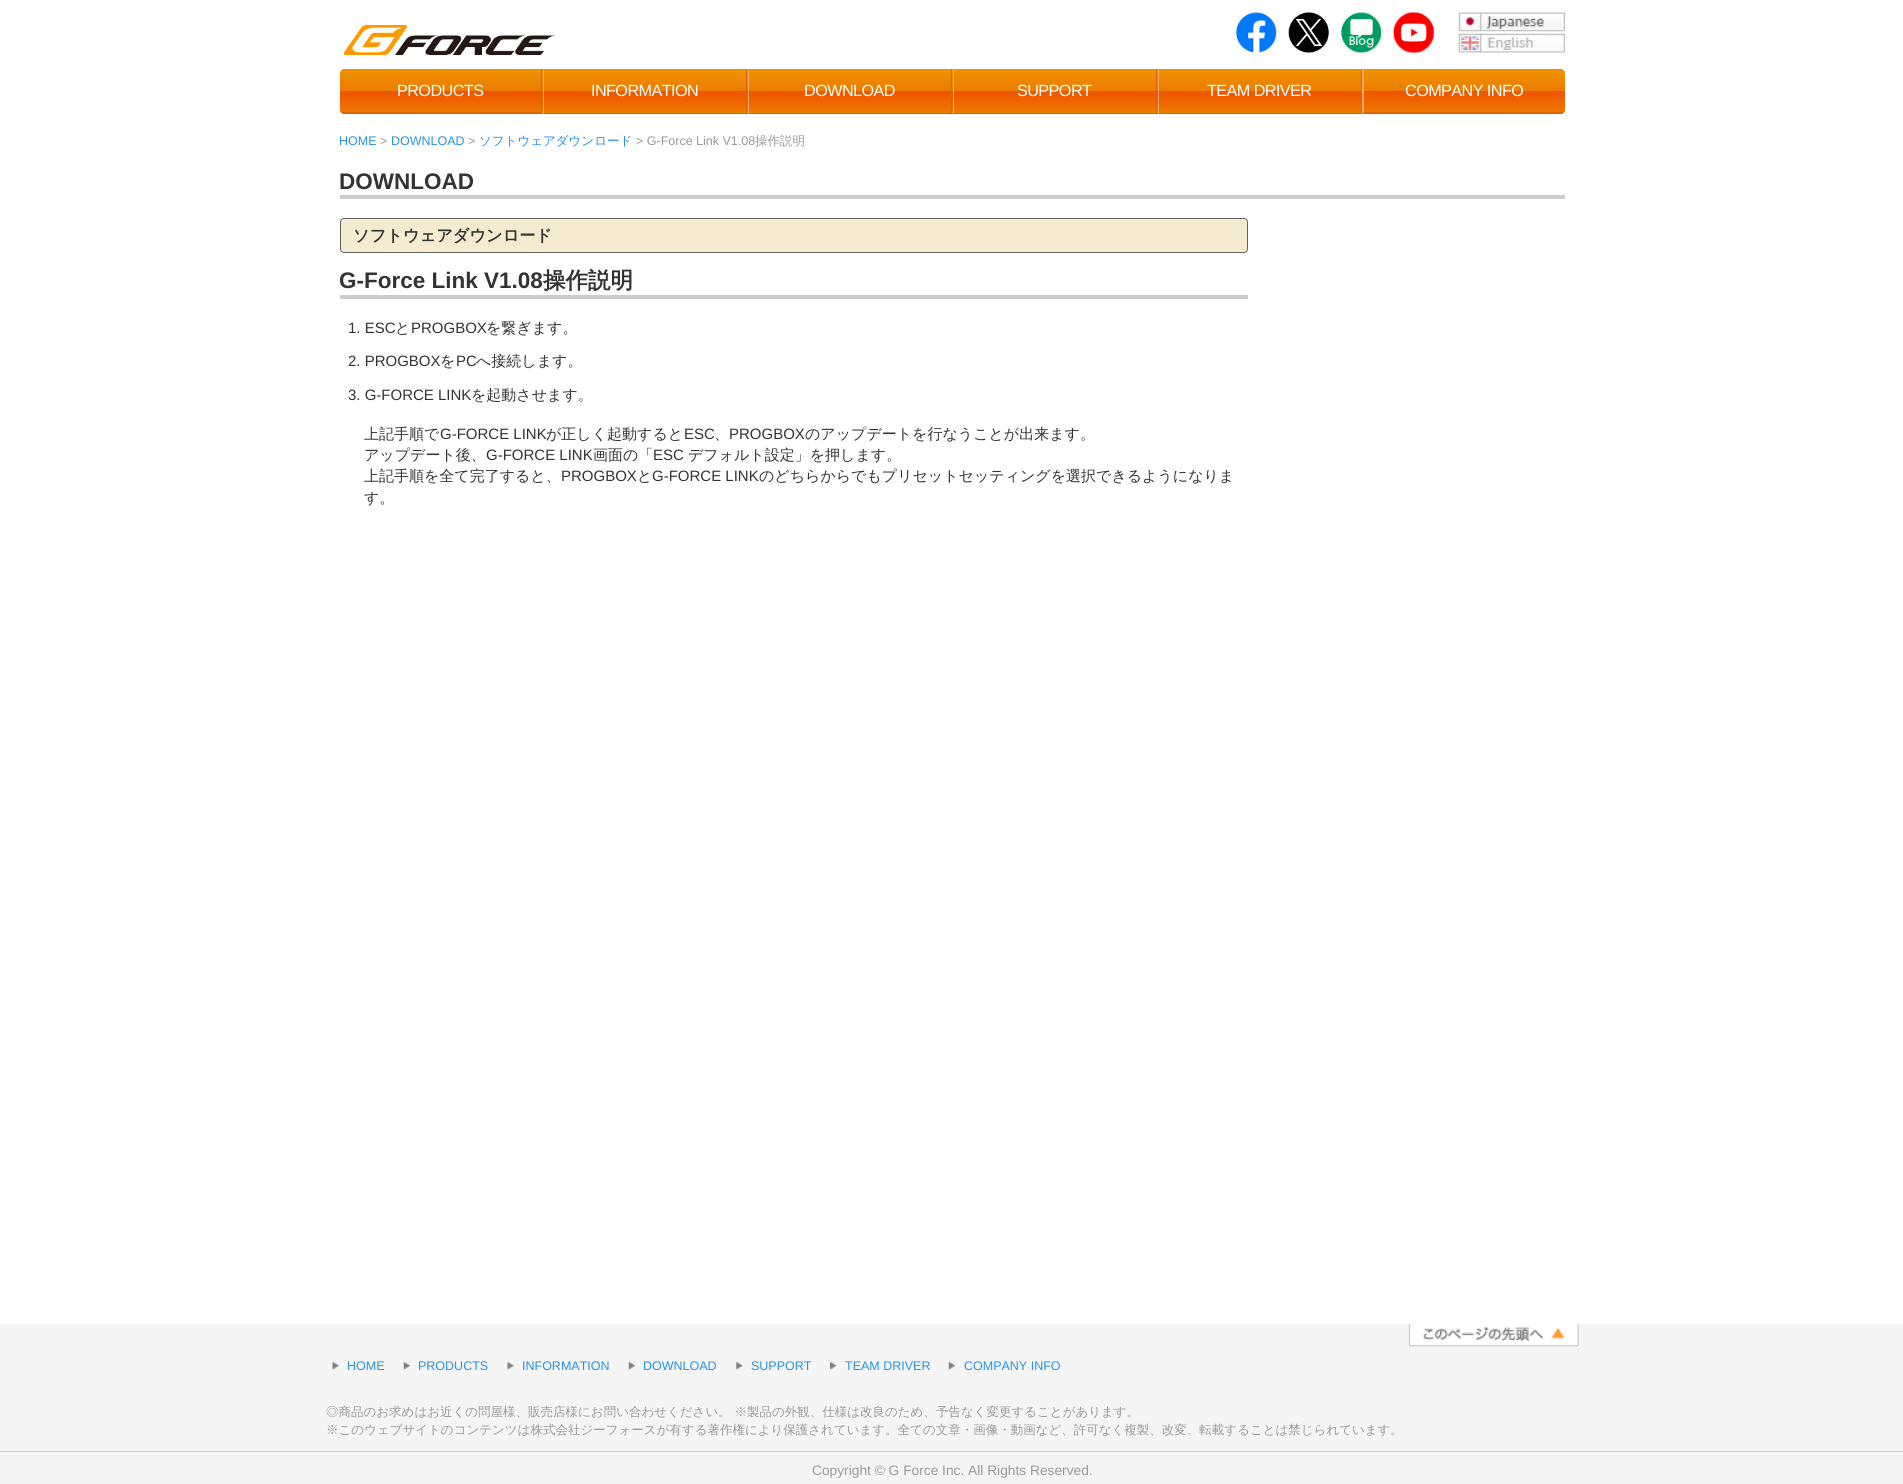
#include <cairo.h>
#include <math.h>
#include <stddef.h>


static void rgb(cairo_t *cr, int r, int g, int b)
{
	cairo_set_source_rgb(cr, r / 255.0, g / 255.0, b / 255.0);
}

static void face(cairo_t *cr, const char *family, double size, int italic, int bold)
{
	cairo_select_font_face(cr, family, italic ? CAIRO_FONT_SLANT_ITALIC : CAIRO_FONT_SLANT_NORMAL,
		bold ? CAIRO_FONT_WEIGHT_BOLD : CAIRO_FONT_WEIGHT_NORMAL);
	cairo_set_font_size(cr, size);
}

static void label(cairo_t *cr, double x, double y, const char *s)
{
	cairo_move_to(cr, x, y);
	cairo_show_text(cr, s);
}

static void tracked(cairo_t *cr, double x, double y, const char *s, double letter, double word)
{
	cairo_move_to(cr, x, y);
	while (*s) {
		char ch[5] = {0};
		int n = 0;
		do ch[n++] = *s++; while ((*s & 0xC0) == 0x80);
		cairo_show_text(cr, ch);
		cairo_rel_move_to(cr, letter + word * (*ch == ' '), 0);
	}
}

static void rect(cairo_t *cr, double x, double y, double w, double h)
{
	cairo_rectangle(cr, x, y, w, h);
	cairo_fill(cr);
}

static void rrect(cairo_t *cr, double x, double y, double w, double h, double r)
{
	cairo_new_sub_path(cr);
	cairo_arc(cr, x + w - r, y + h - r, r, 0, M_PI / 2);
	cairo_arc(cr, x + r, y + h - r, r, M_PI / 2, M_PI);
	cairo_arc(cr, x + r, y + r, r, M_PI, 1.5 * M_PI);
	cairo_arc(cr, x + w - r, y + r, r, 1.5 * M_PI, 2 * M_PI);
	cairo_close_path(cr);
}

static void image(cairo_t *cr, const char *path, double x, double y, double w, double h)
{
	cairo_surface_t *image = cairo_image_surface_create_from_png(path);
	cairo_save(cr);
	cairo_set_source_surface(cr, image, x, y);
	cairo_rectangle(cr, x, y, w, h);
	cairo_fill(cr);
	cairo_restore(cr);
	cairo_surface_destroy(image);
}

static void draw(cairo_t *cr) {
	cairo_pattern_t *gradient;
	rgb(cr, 255, 255, 255);
	cairo_paint(cr);
	image(cr, "image0.png", 343, 25, 212, 30);
	image(cr, "image1.png", 1236, 12, 41, 41);
	image(cr, "image2.png", 1288, 12, 41, 41);
	image(cr, "image3.png", 1341, 12, 41, 41);
	image(cr, "image4.png", 1393, 12, 41, 41);
	image(cr, "image5.png", 1458, 12, 107, 20);
	image(cr, "image6.png", 1458, 33, 107, 20);
	cairo_save(cr);
	cairo_new_path(cr);
	cairo_move_to(cr, 345, 69);
	cairo_line_to(cr, 543, 69);
	cairo_line_to(cr, 543, 114);
	cairo_line_to(cr, 345, 114);
	cairo_curve_to(cr, 342, 114, 340, 112, 340, 109);
	cairo_line_to(cr, 340, 74);
	cairo_curve_to(cr, 340, 71, 342, 69, 345, 69);
	cairo_close_path(cr);
	cairo_clip(cr);
	gradient = cairo_pattern_create_linear(340, 70, 340, 28);
	cairo_pattern_add_color_stop_rgba(gradient, 0, 0.933, 0.482, 0, 1);
	cairo_pattern_add_color_stop_rgba(gradient, 0.5, 0.933, 0.329, 0, 1);
	cairo_pattern_add_color_stop_rgba(gradient, 0.51, 0.933, 0.482, 0, 1);
	cairo_pattern_add_color_stop_rgba(gradient, 1, 0.933, 0.573, 0, 1);
	cairo_set_source(cr, gradient);
	cairo_pattern_destroy(gradient);
	rect(cr, 340, 69, 203, 1);
	gradient = cairo_pattern_create_linear(340, 113, 340, 70);
	cairo_pattern_add_color_stop_rgba(gradient, 0, 0.933, 0.482, 0, 1);
	cairo_pattern_add_color_stop_rgba(gradient, 0.5, 0.933, 0.329, 0, 1);
	cairo_pattern_add_color_stop_rgba(gradient, 0.51, 0.933, 0.482, 0, 1);
	cairo_pattern_add_color_stop_rgba(gradient, 1, 0.933, 0.573, 0, 1);
	cairo_set_source(cr, gradient);
	cairo_pattern_destroy(gradient);
	rect(cr, 340, 70, 203, 43);
	gradient = cairo_pattern_create_linear(340, 155, 340, 113);
	cairo_pattern_add_color_stop_rgba(gradient, 0, 0.933, 0.482, 0, 1);
	cairo_pattern_add_color_stop_rgba(gradient, 0.5, 0.933, 0.329, 0, 1);
	cairo_pattern_add_color_stop_rgba(gradient, 0.51, 0.933, 0.482, 0, 1);
	cairo_pattern_add_color_stop_rgba(gradient, 1, 0.933, 0.573, 0, 1);
	cairo_set_source(cr, gradient);
	cairo_pattern_destroy(gradient);
	rect(cr, 340, 113, 203, 1);
	cairo_restore(cr);
	rgb(cr, 248, 131, 45);
	cairo_new_path(cr);
	cairo_move_to(cr, 345, 69);
	cairo_line_to(cr, 542, 69);
	cairo_line_to(cr, 541, 70);
	cairo_line_to(cr, 345, 70);
	cairo_curve_to(cr, 342, 70, 340, 72, 340, 74);
	cairo_curve_to(cr, 340, 71, 342, 69, 345, 69);
	cairo_close_path(cr);
	cairo_fill(cr);
	rgb(cr, 228, 98, 2);
	cairo_new_path(cr);
	cairo_move_to(cr, 541, 70);
	cairo_line_to(cr, 542, 69);
	cairo_line_to(cr, 542, 113);
	cairo_line_to(cr, 541, 112);
	cairo_close_path(cr);
	cairo_fill(cr);
	rgb(cr, 226, 97, 3);
	cairo_new_path(cr);
	cairo_move_to(cr, 343, 114);
	cairo_curve_to(cr, 341, 113, 340, 111, 340, 109);
	cairo_curve_to(cr, 340, 111, 342, 112, 345, 112);
	cairo_line_to(cr, 541, 112);
	cairo_line_to(cr, 542, 114);
	cairo_close_path(cr);
	cairo_fill(cr);
	face(cr, "Liberation Sans", 16.25, 0, 0);
	rgb(cr, 255, 255, 255);
	tracked(cr, 397, 96, "PRODUCTS", -0.6, 0);
	gradient = cairo_pattern_create_linear(544, 113, 544, 70);
	cairo_pattern_add_color_stop_rgba(gradient, 0, 0.933, 0.482, 0, 1);
	cairo_pattern_add_color_stop_rgba(gradient, 0.5, 0.933, 0.329, 0, 1);
	cairo_pattern_add_color_stop_rgba(gradient, 0.51, 0.933, 0.482, 0, 1);
	cairo_pattern_add_color_stop_rgba(gradient, 1, 0.933, 0.573, 0, 1);
	cairo_set_source(cr, gradient);
	cairo_pattern_destroy(gradient);
	rect(cr, 544, 70, 204, 43);
	rgb(cr, 248, 131, 45);
	rect(cr, 543, 69, 820, 1);
	rgb(cr, 228, 98, 2);
	rect(cr, 746, 69, 1, 45);
	rgb(cr, 226, 97, 3);
	rect(cr, 543, 113, 205, 1);
	rgb(cr, 251, 170, 110);
	rect(cr, 543, 69, 1, 45);
	rgb(cr, 255, 255, 255);
	tracked(cr, 591, 96, "INFORMATION", -0.6, 0);
	gradient = cairo_pattern_create_linear(749, 113, 749, 70);
	cairo_pattern_add_color_stop_rgba(gradient, 0, 0.933, 0.482, 0, 1);
	cairo_pattern_add_color_stop_rgba(gradient, 0.5, 0.933, 0.329, 0, 1);
	cairo_pattern_add_color_stop_rgba(gradient, 0.51, 0.933, 0.482, 0, 1);
	cairo_pattern_add_color_stop_rgba(gradient, 1, 0.933, 0.573, 0, 1);
	cairo_set_source(cr, gradient);
	cairo_pattern_destroy(gradient);
	rect(cr, 749, 70, 204, 43);
	rgb(cr, 228, 98, 2);
	rect(cr, 951, 69, 1, 45);
	rgb(cr, 226, 97, 3);
	rect(cr, 748, 113, 205, 1);
	rgb(cr, 251, 170, 110);
	rect(cr, 748, 69, 1, 45);
	rgb(cr, 255, 255, 255);
	tracked(cr, 804, 96, "DOWNLOAD", -0.6, 0);
	gradient = cairo_pattern_create_linear(954, 113, 954, 70);
	cairo_pattern_add_color_stop_rgba(gradient, 0, 0.933, 0.482, 0, 1);
	cairo_pattern_add_color_stop_rgba(gradient, 0.5, 0.933, 0.329, 0, 1);
	cairo_pattern_add_color_stop_rgba(gradient, 0.51, 0.933, 0.482, 0, 1);
	cairo_pattern_add_color_stop_rgba(gradient, 1, 0.933, 0.573, 0, 1);
	cairo_set_source(cr, gradient);
	cairo_pattern_destroy(gradient);
	rect(cr, 954, 70, 204, 43);
	rgb(cr, 228, 98, 2);
	rect(cr, 1156, 69, 1, 45);
	rgb(cr, 226, 97, 3);
	rect(cr, 953, 113, 205, 1);
	rgb(cr, 251, 170, 110);
	rect(cr, 953, 69, 1, 45);
	rgb(cr, 255, 255, 255);
	tracked(cr, 1017, 96, "SUPPORT", -0.6, 0);
	gradient = cairo_pattern_create_linear(1159, 113, 1159, 70);
	cairo_pattern_add_color_stop_rgba(gradient, 0, 0.933, 0.482, 0, 1);
	cairo_pattern_add_color_stop_rgba(gradient, 0.5, 0.933, 0.329, 0, 1);
	cairo_pattern_add_color_stop_rgba(gradient, 0.51, 0.933, 0.482, 0, 1);
	cairo_pattern_add_color_stop_rgba(gradient, 1, 0.933, 0.573, 0, 1);
	cairo_set_source(cr, gradient);
	cairo_pattern_destroy(gradient);
	rect(cr, 1159, 70, 202, 43);
	rgb(cr, 228, 98, 2);
	rect(cr, 1361, 69, 1, 45);
	rgb(cr, 226, 97, 3);
	rect(cr, 1158, 113, 205, 1);
	rgb(cr, 251, 170, 110);
	rect(cr, 1158, 69, 1, 45);
	rgb(cr, 255, 255, 255);
	tracked(cr, 1207, 96, "TEAM DRIVER", -0.6, 0);
	cairo_save(cr);
	cairo_new_path(cr);
	cairo_move_to(cr, 1363, 69);
	cairo_line_to(cr, 1560, 69);
	cairo_curve_to(cr, 1563, 69, 1565, 71, 1565, 74);
	cairo_line_to(cr, 1565, 109);
	cairo_curve_to(cr, 1565, 112, 1563, 114, 1560, 114);
	cairo_line_to(cr, 1363, 114);
	cairo_close_path(cr);
	cairo_clip(cr);
	gradient = cairo_pattern_create_linear(1364, 70, 1364, 28);
	cairo_pattern_add_color_stop_rgba(gradient, 0, 0.933, 0.482, 0, 1);
	cairo_pattern_add_color_stop_rgba(gradient, 0.5, 0.933, 0.329, 0, 1);
	cairo_pattern_add_color_stop_rgba(gradient, 0.51, 0.933, 0.482, 0, 1);
	cairo_pattern_add_color_stop_rgba(gradient, 1, 0.933, 0.573, 0, 1);
	cairo_set_source(cr, gradient);
	cairo_pattern_destroy(gradient);
	rect(cr, 1363, 69, 202, 1);
	gradient = cairo_pattern_create_linear(1364, 113, 1364, 70);
	cairo_pattern_add_color_stop_rgba(gradient, 0, 0.933, 0.482, 0, 1);
	cairo_pattern_add_color_stop_rgba(gradient, 0.5, 0.933, 0.329, 0, 1);
	cairo_pattern_add_color_stop_rgba(gradient, 0.51, 0.933, 0.482, 0, 1);
	cairo_pattern_add_color_stop_rgba(gradient, 1, 0.933, 0.573, 0, 1);
	cairo_set_source(cr, gradient);
	cairo_pattern_destroy(gradient);
	rect(cr, 1363, 70, 202, 43);
	cairo_restore(cr);
	rgb(cr, 248, 131, 45);
	cairo_new_path(cr);
	cairo_move_to(cr, 1364, 70);
	cairo_line_to(cr, 1363, 69);
	cairo_line_to(cr, 1560, 69);
	cairo_curve_to(cr, 1563, 69, 1565, 71, 1565, 74);
	cairo_curve_to(cr, 1565, 72, 1563, 70, 1560, 70);
	cairo_close_path(cr);
	cairo_fill(cr);
	rgb(cr, 226, 97, 3);
	cairo_new_path(cr);
	cairo_move_to(cr, 1562, 114);
	cairo_line_to(cr, 1362, 114);
	cairo_line_to(cr, 1364, 112);
	cairo_line_to(cr, 1560, 112);
	cairo_curve_to(cr, 1563, 112, 1565, 111, 1565, 109);
	cairo_curve_to(cr, 1565, 111, 1564, 113, 1562, 114);
	cairo_close_path(cr);
	cairo_fill(cr);
	rgb(cr, 251, 170, 110);
	cairo_new_path(cr);
	cairo_move_to(cr, 1362, 114);
	cairo_line_to(cr, 1364, 112);
	cairo_line_to(cr, 1364, 70);
	cairo_line_to(cr, 1362, 69);
	cairo_close_path(cr);
	cairo_fill(cr);
	rgb(cr, 255, 255, 255);
	tracked(cr, 1405, 96, "COMPANY INFO", -0.6, 0);
	face(cr, "Liberation Sans", 12.5, 0, 0);
	rgb(cr, 39, 145, 234);
	label(cr, 339, 145, "HOME");
	rgb(cr, 153, 153, 153);
	label(cr, 380, 145, ">");
	rgb(cr, 39, 145, 234);
	label(cr, 391, 145, "DOWNLOAD");
	rgb(cr, 153, 153, 153);
	label(cr, 468, 145, ">");
	face(cr, "WenQuanYi Zen Hei Medium", 12.5, 0, 0);
	rgb(cr, 39, 145, 234);
	label(cr, 479, 145, "ソフトウェアダウンロード");
	face(cr, "Liberation Sans", 12.5, 0, 0);
	rgb(cr, 153, 153, 153);
	label(cr, 636, 145, "> G-Force Link V1.08");
	face(cr, "WenQuanYi Zen Hei Medium", 12.5, 0, 0);
	label(cr, 755, 145, "操作説明");
	rgb(cr, 204, 204, 204);
	rect(cr, 340, 195, 1225, 4);
	face(cr, "Liberation Sans", 22.5, 0, 1);
	rgb(cr, 51, 51, 51);
	label(cr, 339, 189, "DOWNLOAD");
	rgb(cr, 245, 235, 208);
	rrect(cr, 340.5, 218.5, 907, 34, 3.5);
	cairo_fill_preserve(cr);
	rgb(cr, 102, 102, 102);
	cairo_set_line_width(cr, 1);
	cairo_stroke(cr);
	face(cr, "WenQuanYi Zen Hei", 16.25, 0, 1);
	rgb(cr, 51, 51, 51);
	label(cr, 353, 241, "ソフトウェアダウンロード");
	rgb(cr, 204, 204, 204);
	rect(cr, 340, 295, 908, 4);
	face(cr, "Liberation Sans", 22.5, 0, 1);
	rgb(cr, 51, 51, 51);
	label(cr, 339, 288, "G-Force Link V1.08");
	face(cr, "WenQuanYi Zen Hei", 22.5, 0, 1);
	label(cr, 543, 288, "操作説明");
	face(cr, "Liberation Sans", 15, 0, 0);
	label(cr, 348, 333, "1. ESC");
	face(cr, "WenQuanYi Zen Hei Medium", 15, 0, 0);
	label(cr, 395, 333, "と");
	face(cr, "Liberation Sans", 15, 0, 0);
	label(cr, 411, 333, "PROGBOX");
	face(cr, "WenQuanYi Zen Hei Medium", 15, 0, 0);
	label(cr, 486, 333, "を繋ぎます。");
	face(cr, "Liberation Sans", 15, 0, 0);
	label(cr, 348, 366, "2. PROGBOX");
	face(cr, "WenQuanYi Zen Hei Medium", 15, 0, 0);
	label(cr, 440, 366, "を");
	face(cr, "Liberation Sans", 15, 0, 0);
	label(cr, 456, 366, "PC");
	face(cr, "WenQuanYi Zen Hei Medium", 15, 0, 0);
	label(cr, 476, 366, "へ接続します。");
	face(cr, "Liberation Sans", 15, 0, 0);
	label(cr, 348, 400, "3. G-FORCE LINK");
	face(cr, "WenQuanYi Zen Hei Medium", 15, 0, 0);
	label(cr, 471, 400, "を起動させます。");
	label(cr, 364, 439, "上記手順で");
	face(cr, "Liberation Sans", 15, 0, 0);
	label(cr, 440, 439, "G-FORCE LINK");
	face(cr, "WenQuanYi Zen Hei Medium", 15, 0, 0);
	label(cr, 546, 439, "が正しく起動すると");
	face(cr, "Liberation Sans", 15, 0, 0);
	label(cr, 684, 439, "ESC");
	face(cr, "WenQuanYi Zen Hei Medium", 15, 0, 0);
	label(cr, 714, 439, "、");
	face(cr, "Liberation Sans", 15, 0, 0);
	label(cr, 729, 439, "PROGBOX");
	face(cr, "WenQuanYi Zen Hei Medium", 15, 0, 0);
	label(cr, 805, 439, "のアップデートを行なうことが出来ます。");
	label(cr, 364, 460, "アップデート後、");
	face(cr, "Liberation Sans", 15, 0, 0);
	label(cr, 486, 460, "G-FORCE LINK");
	face(cr, "WenQuanYi Zen Hei Medium", 15, 0, 0);
	label(cr, 593, 460, "画面の「");
	face(cr, "Liberation Sans", 15, 0, 0);
	label(cr, 653, 460, "ESC");
	face(cr, "WenQuanYi Zen Hei Medium", 15, 0, 0);
	label(cr, 688, 460, "デフォルト設定」を押します。");
	label(cr, 364, 481, "上記手順を全て完了すると、");
	face(cr, "Liberation Sans", 15, 0, 0);
	label(cr, 561, 481, "PROGBOX");
	face(cr, "WenQuanYi Zen Hei Medium", 15, 0, 0);
	label(cr, 637, 481, "と");
	face(cr, "Liberation Sans", 15, 0, 0);
	label(cr, 652, 481, "G-FORCE LINK");
	face(cr, "WenQuanYi Zen Hei Medium", 15, 0, 0);
	label(cr, 759, 481, "のどちらからでもプリセットセッティングを選択できるようになりま");
	label(cr, 364, 503, "す。");
	rgb(cr, 245, 245, 245);
	rect(cr, 0, 1324, 1903, 160);
	image(cr, "image7.png", 1408, 1323, 171, 24);
	image(cr, "image8.png", 332, 1361, 7, 9);
	face(cr, "Liberation Sans", 12.5, 0, 0);
	rgb(cr, 39, 145, 234);
	label(cr, 347, 1370, "HOME");
	image(cr, "image9.png", 403, 1361, 7, 9);
	label(cr, 418, 1370, "PRODUCTS");
	image(cr, "image8.png", 507, 1361, 7, 9);
	label(cr, 522, 1370, "INFORMATION");
	image(cr, "image10.png", 628, 1361, 7, 9);
	label(cr, 643, 1370, "DOWNLOAD");
	image(cr, "image11.png", 736, 1361, 7, 9);
	label(cr, 751, 1370, "SUPPORT");
	image(cr, "image12.png", 830, 1361, 7, 9);
	label(cr, 845, 1370, "TEAM DRIVER");
	image(cr, "image9.png", 948, 1361, 7, 9);
	label(cr, 964, 1370, "COMPANY INFO");
	face(cr, "WenQuanYi Zen Hei Medium", 12.5, 0, 0);
	rgb(cr, 153, 153, 153);
	label(cr, 326, 1416, "◎商品のお求めはお近くの問屋様、販売店様にお問い合わせください。 ※製品の外観、仕様は改良のため、予告なく変更することがあります。");
	label(cr, 326, 1434, "※このウェブサイトのコンテンツは株式会社ジーフォースが有する著作権により保護されています。全ての文章・画像・動画など、許可なく複製、改変、転載することは禁じられています。");
	rgb(cr, 204, 204, 204);
	rect(cr, 0, 1451, 1903, 1);
	face(cr, "Liberation Sans", 13.75, 0, 0);
	rgb(cr, 153, 153, 153);
	label(cr, 812, 1475, "Copyright © G Force Inc. All Rights Reserved.");
}

int main(void) {
	cairo_surface_t *surface = cairo_image_surface_create(CAIRO_FORMAT_RGB24, 1903, 1484);
	cairo_t *cr = cairo_create(surface);
	cairo_font_options_t *options = cairo_font_options_create();
	cairo_font_options_set_hint_metrics(options, CAIRO_HINT_METRICS_OFF);
	cairo_font_options_set_hint_style(options, CAIRO_HINT_STYLE_NONE);
	cairo_set_font_options(cr, options);
	cairo_set_miter_limit(cr, 4);
	draw(cr);
	cairo_surface_write_to_png(surface, "render.png");
	cairo_font_options_destroy(options);
	cairo_destroy(cr);
	cairo_surface_destroy(surface);
	return 0;
}
